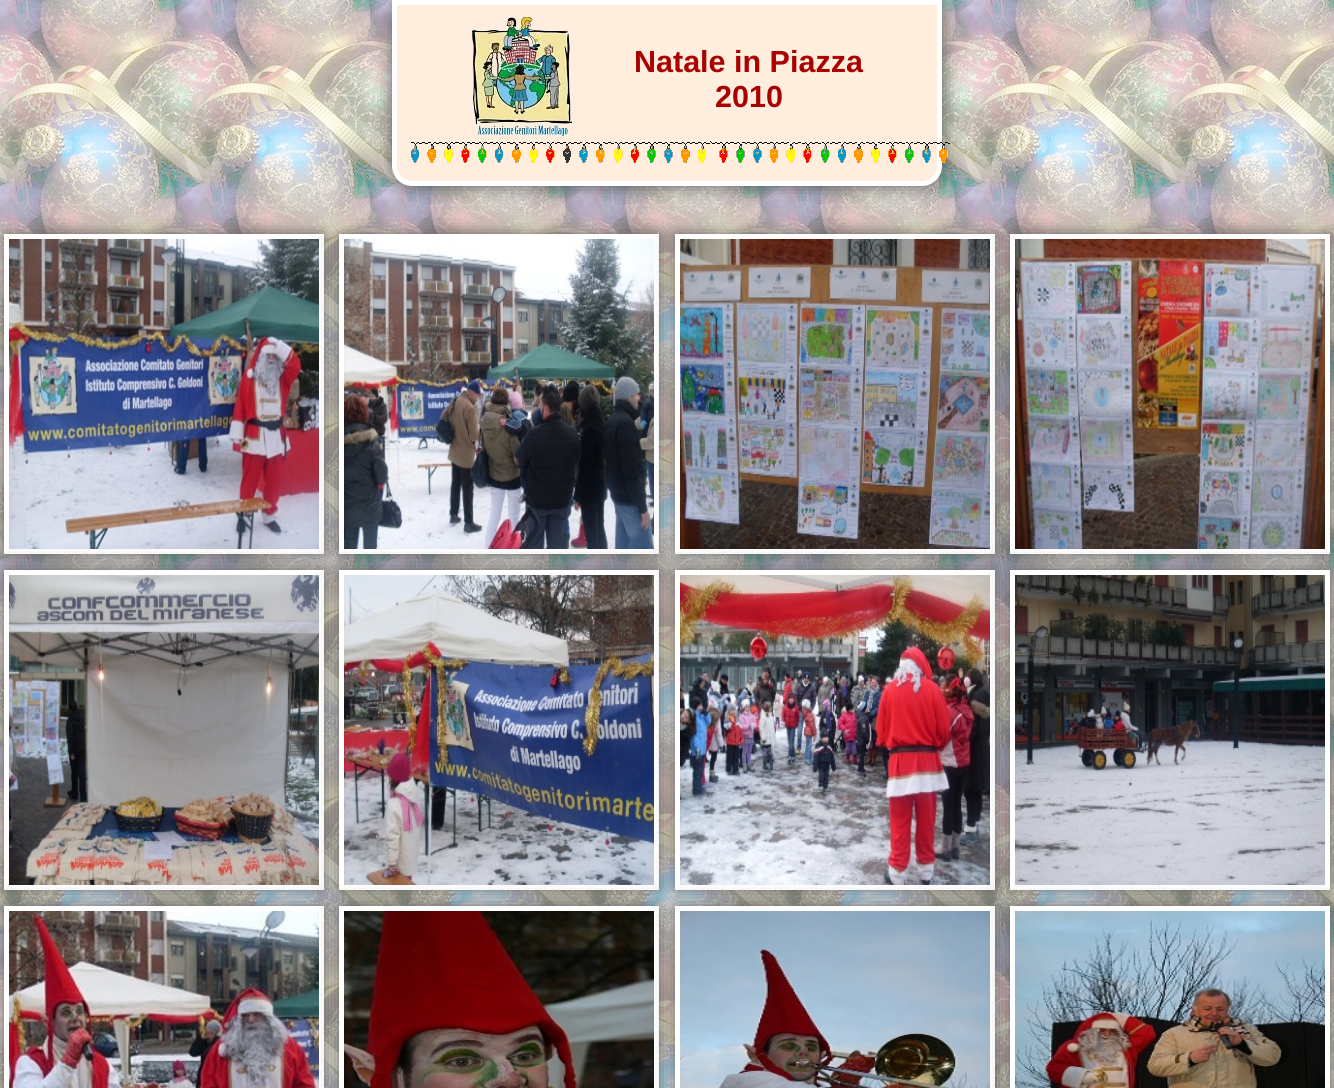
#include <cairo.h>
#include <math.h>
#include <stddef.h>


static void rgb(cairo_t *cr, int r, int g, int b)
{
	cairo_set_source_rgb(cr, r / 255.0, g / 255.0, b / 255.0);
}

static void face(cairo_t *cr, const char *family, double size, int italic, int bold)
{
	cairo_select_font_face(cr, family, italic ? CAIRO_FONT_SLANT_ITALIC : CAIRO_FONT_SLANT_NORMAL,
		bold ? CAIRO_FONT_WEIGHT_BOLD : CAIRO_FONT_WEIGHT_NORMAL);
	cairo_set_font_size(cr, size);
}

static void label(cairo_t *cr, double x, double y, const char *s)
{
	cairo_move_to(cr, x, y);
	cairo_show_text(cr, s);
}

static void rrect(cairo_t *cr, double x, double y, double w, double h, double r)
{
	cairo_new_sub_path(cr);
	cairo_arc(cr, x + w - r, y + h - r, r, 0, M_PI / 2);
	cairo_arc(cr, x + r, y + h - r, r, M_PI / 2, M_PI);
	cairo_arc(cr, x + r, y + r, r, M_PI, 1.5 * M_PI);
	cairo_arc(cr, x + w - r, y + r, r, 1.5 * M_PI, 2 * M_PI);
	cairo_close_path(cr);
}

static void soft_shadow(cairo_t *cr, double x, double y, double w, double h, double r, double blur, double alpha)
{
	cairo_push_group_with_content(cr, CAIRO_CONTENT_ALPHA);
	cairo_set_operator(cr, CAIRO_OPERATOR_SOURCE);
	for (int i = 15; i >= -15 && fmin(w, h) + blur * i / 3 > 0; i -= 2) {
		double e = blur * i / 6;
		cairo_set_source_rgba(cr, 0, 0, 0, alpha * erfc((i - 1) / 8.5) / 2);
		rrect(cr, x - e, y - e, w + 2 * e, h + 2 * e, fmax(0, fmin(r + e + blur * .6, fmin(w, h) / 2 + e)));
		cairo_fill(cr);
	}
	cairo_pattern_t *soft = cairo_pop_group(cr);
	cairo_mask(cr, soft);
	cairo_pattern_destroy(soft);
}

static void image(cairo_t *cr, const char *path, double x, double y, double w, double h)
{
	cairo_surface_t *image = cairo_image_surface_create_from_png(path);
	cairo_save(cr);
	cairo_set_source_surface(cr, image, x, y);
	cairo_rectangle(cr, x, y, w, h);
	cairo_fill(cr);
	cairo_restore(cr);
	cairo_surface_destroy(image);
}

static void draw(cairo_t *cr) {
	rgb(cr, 255, 255, 255);
	cairo_paint(cr);
	image(cr, "image0.png", 0, 0, 1334, 1088);
	rgb(cr, 85, 85, 85);
	soft_shadow(cr, 392, 0, 550, 186, 20, 10, 1);
	rgb(cr, 255, 238, 221);
	cairo_new_path(cr);
	cairo_move_to(cr, 394.5, 2.5);
	cairo_line_to(cr, 939.5, 2.5);
	cairo_line_to(cr, 939.5, 166);
	cairo_curve_to(cr, 939.5, 175.5, 931.5, 183.5, 922, 183.5);
	cairo_line_to(cr, 412, 183.5);
	cairo_curve_to(cr, 402.5, 183.5, 394.5, 175.5, 394.5, 166);
	cairo_close_path(cr);
	cairo_fill_preserve(cr);
	rgb(cr, 255, 255, 255);
	cairo_set_line_width(cr, 5);
	cairo_stroke(cr);
	image(cr, "image1.png", 472, 17, 100, 120);
	face(cr, "Liberation Sans", 30.5, 0, 1);
	rgb(cr, 170, 0, 0);
	label(cr, 634, 72, "Natale in Piazza");
	label(cr, 715, 107, "2010");
	image(cr, "image2.png", 411, 141, 539, 22);
	rgb(cr, 85, 85, 85);
	soft_shadow(cr, 4, 234, 320, 320, 0, 10, 1);
	cairo_rectangle(cr, 6.5, 236.5, 315, 315);
	rgb(cr, 255, 255, 255);
	cairo_stroke(cr);
	image(cr, "image3.png", 9, 239, 310, 310);
	rgb(cr, 85, 85, 85);
	soft_shadow(cr, 339, 234, 320, 320, 0, 10, 1);
	cairo_rectangle(cr, 341.5, 236.5, 315, 315);
	rgb(cr, 255, 255, 255);
	cairo_stroke(cr);
	image(cr, "image4.png", 344, 239, 310, 310);
	rgb(cr, 85, 85, 85);
	soft_shadow(cr, 675, 234, 320, 320, 0, 10, 1);
	cairo_rectangle(cr, 677.5, 236.5, 315, 315);
	rgb(cr, 255, 255, 255);
	cairo_stroke(cr);
	image(cr, "image5.png", 680, 239, 310, 310);
	rgb(cr, 85, 85, 85);
	soft_shadow(cr, 1010, 234, 320, 320, 0, 10, 1);
	cairo_rectangle(cr, 1012.5, 236.5, 315, 315);
	rgb(cr, 255, 255, 255);
	cairo_stroke(cr);
	image(cr, "image6.png", 1015, 239, 310, 310);
	rgb(cr, 85, 85, 85);
	soft_shadow(cr, 4, 570, 320, 320, 0, 10, 1);
	cairo_rectangle(cr, 6.5, 572.5, 315, 315);
	rgb(cr, 255, 255, 255);
	cairo_stroke(cr);
	image(cr, "image7.png", 9, 575, 310, 310);
	rgb(cr, 85, 85, 85);
	soft_shadow(cr, 339, 570, 320, 320, 0, 10, 1);
	cairo_rectangle(cr, 341.5, 572.5, 315, 315);
	rgb(cr, 255, 255, 255);
	cairo_stroke(cr);
	image(cr, "image8.png", 344, 575, 310, 310);
	rgb(cr, 85, 85, 85);
	soft_shadow(cr, 675, 570, 320, 320, 0, 10, 1);
	cairo_rectangle(cr, 677.5, 572.5, 315, 315);
	rgb(cr, 255, 255, 255);
	cairo_stroke(cr);
	image(cr, "image9.png", 680, 575, 310, 310);
	rgb(cr, 85, 85, 85);
	soft_shadow(cr, 1010, 570, 320, 320, 0, 10, 1);
	cairo_rectangle(cr, 1012.5, 572.5, 315, 315);
	rgb(cr, 255, 255, 255);
	cairo_stroke(cr);
	image(cr, "image10.png", 1015, 575, 310, 310);
	rgb(cr, 85, 85, 85);
	soft_shadow(cr, 4, 906, 320, 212, 0, 10, 1);
	cairo_rectangle(cr, 6.5, 908.5, 315, 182);
	rgb(cr, 255, 255, 255);
	cairo_stroke(cr);
	image(cr, "image11.png", 9, 911, 310, 177);
	rgb(cr, 85, 85, 85);
	soft_shadow(cr, 339, 906, 320, 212, 0, 10, 1);
	cairo_rectangle(cr, 341.5, 908.5, 315, 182);
	rgb(cr, 255, 255, 255);
	cairo_stroke(cr);
	image(cr, "image12.png", 344, 911, 310, 177);
	rgb(cr, 85, 85, 85);
	soft_shadow(cr, 675, 906, 320, 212, 0, 10, 1);
	cairo_rectangle(cr, 677.5, 908.5, 315, 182);
	rgb(cr, 255, 255, 255);
	cairo_stroke(cr);
	image(cr, "image13.png", 680, 911, 310, 177);
	rgb(cr, 85, 85, 85);
	soft_shadow(cr, 1010, 906, 320, 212, 0, 10, 1);
	cairo_rectangle(cr, 1012.5, 908.5, 315, 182);
	rgb(cr, 255, 255, 255);
	cairo_stroke(cr);
	image(cr, "image14.png", 1015, 911, 310, 177);
}

int main(void) {
	cairo_surface_t *surface = cairo_image_surface_create(CAIRO_FORMAT_RGB24, 1334, 1088);
	cairo_t *cr = cairo_create(surface);
	cairo_font_options_t *options = cairo_font_options_create();
	cairo_font_options_set_hint_metrics(options, CAIRO_HINT_METRICS_OFF);
	cairo_font_options_set_hint_style(options, CAIRO_HINT_STYLE_NONE);
	cairo_set_font_options(cr, options);
	cairo_set_miter_limit(cr, 4);
	draw(cr);
	cairo_surface_write_to_png(surface, "render.png");
	cairo_font_options_destroy(options);
	cairo_destroy(cr);
	cairo_surface_destroy(surface);
	return 0;
}
